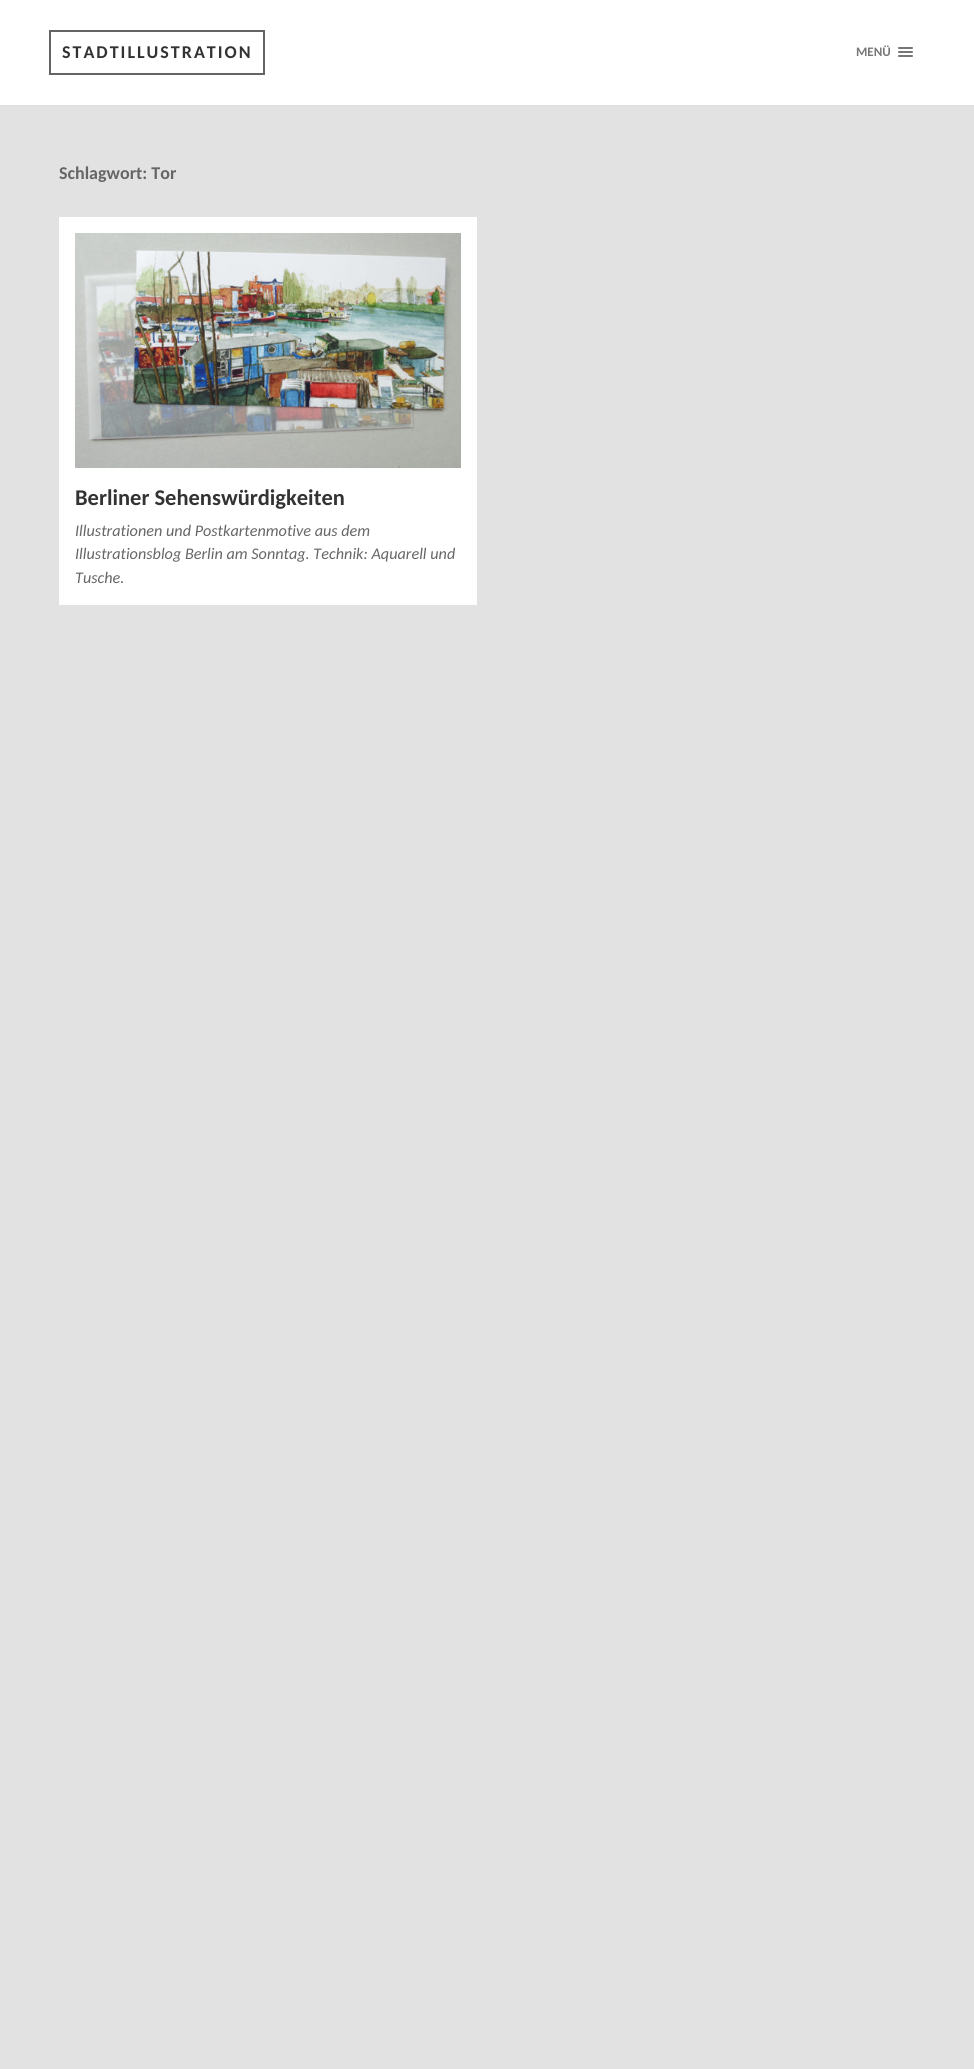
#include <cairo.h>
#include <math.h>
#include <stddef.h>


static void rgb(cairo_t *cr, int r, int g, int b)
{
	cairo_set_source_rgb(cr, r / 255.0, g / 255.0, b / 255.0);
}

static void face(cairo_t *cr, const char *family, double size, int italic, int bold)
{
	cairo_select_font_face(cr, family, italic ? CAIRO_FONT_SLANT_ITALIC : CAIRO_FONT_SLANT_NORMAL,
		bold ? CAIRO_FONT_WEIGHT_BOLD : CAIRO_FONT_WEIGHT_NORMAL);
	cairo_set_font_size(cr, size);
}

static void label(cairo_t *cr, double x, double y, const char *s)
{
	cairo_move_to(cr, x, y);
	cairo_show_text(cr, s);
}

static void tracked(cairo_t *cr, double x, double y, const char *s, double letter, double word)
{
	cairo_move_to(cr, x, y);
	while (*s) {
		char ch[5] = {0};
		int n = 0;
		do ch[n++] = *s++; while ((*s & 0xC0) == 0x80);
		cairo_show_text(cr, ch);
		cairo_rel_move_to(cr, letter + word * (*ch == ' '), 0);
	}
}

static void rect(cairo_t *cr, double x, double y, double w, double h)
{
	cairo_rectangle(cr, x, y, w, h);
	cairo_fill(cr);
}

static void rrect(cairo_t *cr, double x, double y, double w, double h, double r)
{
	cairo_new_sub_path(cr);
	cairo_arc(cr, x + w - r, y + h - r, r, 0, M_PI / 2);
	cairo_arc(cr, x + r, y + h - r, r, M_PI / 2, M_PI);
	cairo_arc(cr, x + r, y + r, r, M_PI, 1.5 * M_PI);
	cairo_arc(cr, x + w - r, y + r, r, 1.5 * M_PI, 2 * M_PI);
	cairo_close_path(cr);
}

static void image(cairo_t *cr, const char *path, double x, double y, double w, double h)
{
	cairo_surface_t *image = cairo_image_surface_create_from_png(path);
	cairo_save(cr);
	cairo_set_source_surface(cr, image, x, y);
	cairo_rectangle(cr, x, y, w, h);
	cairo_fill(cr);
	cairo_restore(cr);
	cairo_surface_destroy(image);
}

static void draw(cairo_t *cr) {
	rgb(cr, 226, 226, 226);
	cairo_paint(cr);
	rgb(cr, 255, 255, 255);
	rect(cr, 0, 0, 974, 105);
	rgb(cr, 221, 221, 221);
	rect(cr, 0, 105, 974, 1);
	cairo_rectangle(cr, 50, 31, 214, 43);
	rgb(cr, 100, 100, 100);
	cairo_stroke(cr);
	face(cr, "Carlito", 18, 0, 1);
	rgb(cr, 51, 51, 51);
	tracked(cr, 62, 58, "STADTILLUSTRATION", 2, 0);
	face(cr, "Carlito", 13, 0, 1);
	rgb(cr, 118, 118, 118);
	label(cr, 856, 56, "MENÜ");
	rrect(cr, 898, 47, 15, 2, 1);
	cairo_fill(cr);
	rrect(cr, 898, 51, 15, 2, 1);
	cairo_fill(cr);
	rrect(cr, 898, 55, 15, 2, 1);
	cairo_fill(cr);
	face(cr, "Carlito", 18, 0, 1);
	rgb(cr, 102, 102, 102);
	label(cr, 59, 179, "Schlagwort: Tor");
	rgb(cr, 255, 255, 255);
	rect(cr, 59, 217, 418, 388);
	image(cr, "image0.png", 75, 233, 386, 235);
	face(cr, "Carlito", 22.5, 0, 1);
	rgb(cr, 51, 51, 51);
	label(cr, 75, 505, "Berliner Sehenswürdigkeiten");
	face(cr, "Carlito", 16.2, 1, 0);
	rgb(cr, 102, 102, 102);
	label(cr, 75, 536, "Illustrationen und Postkartenmotive aus dem");
	label(cr, 75, 559, "Illustrationsblog Berlin am Sonntag. Technik: Aquarell und");
	label(cr, 75, 583, "Tusche.");
}

int main(void) {
	cairo_surface_t *surface = cairo_image_surface_create(CAIRO_FORMAT_RGB24, 974, 2069);
	cairo_t *cr = cairo_create(surface);
	cairo_font_options_t *options = cairo_font_options_create();
	cairo_font_options_set_hint_metrics(options, CAIRO_HINT_METRICS_OFF);
	cairo_font_options_set_hint_style(options, CAIRO_HINT_STYLE_NONE);
	cairo_set_font_options(cr, options);
	cairo_set_miter_limit(cr, 4);
	draw(cr);
	cairo_surface_write_to_png(surface, "render.png");
	cairo_font_options_destroy(options);
	cairo_destroy(cr);
	cairo_surface_destroy(surface);
	return 0;
}
